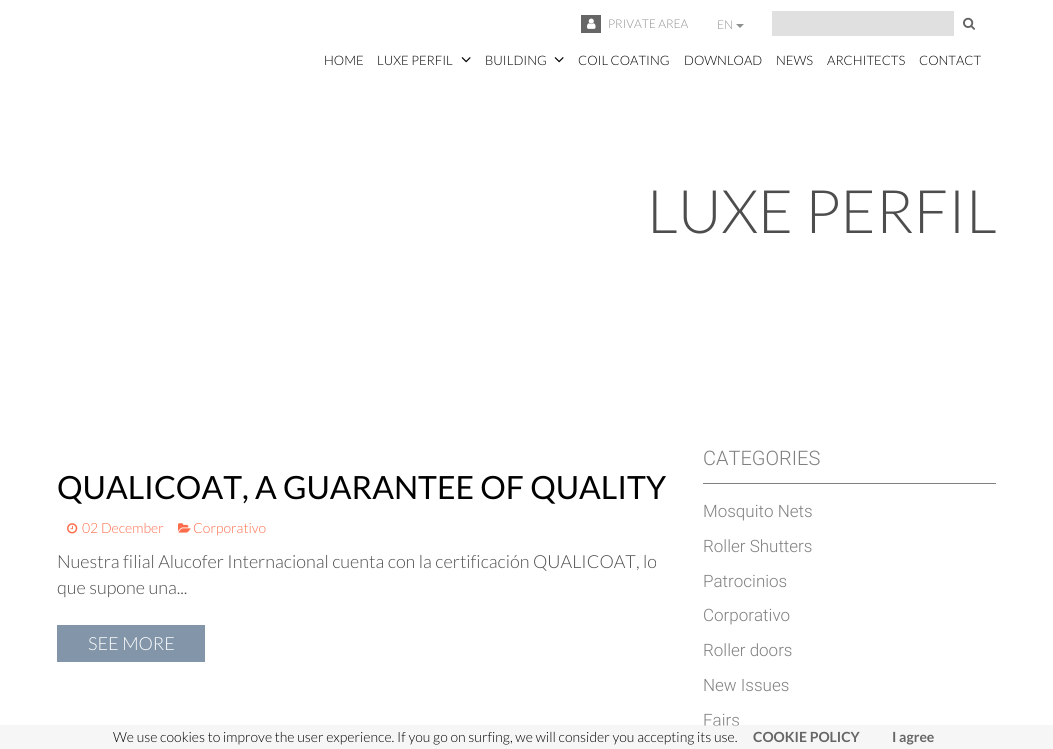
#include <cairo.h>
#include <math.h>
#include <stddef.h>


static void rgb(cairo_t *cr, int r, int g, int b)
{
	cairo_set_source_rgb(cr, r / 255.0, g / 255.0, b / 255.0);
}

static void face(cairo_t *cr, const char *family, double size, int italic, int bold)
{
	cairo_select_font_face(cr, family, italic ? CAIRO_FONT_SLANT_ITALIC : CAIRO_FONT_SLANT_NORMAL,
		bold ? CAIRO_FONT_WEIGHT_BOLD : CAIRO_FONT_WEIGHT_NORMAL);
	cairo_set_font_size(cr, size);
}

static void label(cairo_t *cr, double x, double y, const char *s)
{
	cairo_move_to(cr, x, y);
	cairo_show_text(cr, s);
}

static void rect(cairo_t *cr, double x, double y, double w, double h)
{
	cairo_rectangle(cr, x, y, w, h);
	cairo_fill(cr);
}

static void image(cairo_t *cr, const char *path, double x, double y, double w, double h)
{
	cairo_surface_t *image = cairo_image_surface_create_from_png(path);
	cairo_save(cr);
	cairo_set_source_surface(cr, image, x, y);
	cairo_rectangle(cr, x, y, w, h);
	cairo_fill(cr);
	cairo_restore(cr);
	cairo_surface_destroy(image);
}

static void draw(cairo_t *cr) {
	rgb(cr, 255, 255, 255);
	cairo_paint(cr);
	rgb(cr, 102, 102, 102);
	rect(cr, 581, 15, 20, 18);
	image(cr, "image0.png", 587, 18, 9, 11);
	face(cr, "Lato Light", 12, 0, 0);
	rgb(cr, 142, 144, 144);
	label(cr, 608, 28, "PRIVATE AREA");
	label(cr, 717, 29, "EN");
	cairo_new_path(cr);
	cairo_move_to(cr, 736, 24);
	cairo_line_to(cr, 744, 24);
	cairo_line_to(cr, 740, 28);
	cairo_close_path(cr);
	cairo_fill(cr);
	rgb(cr, 224, 224, 224);
	rect(cr, 772, 11, 182, 25);
	image(cr, "image1.png", 963, 17, 12, 13);
	face(cr, "Lato Light", 13, 0, 0);
	rgb(cr, 0, 0, 0);
	label(cr, 324, 65, "HOME");
	label(cr, 377, 65, "LUXE PERFIL");
	image(cr, "image2.png", 461, 57, 10, 6);
	label(cr, 485, 65, "BUILDING");
	image(cr, "image2.png", 554, 57, 10, 6);
	label(cr, 578, 65, "COIL COATING");
	label(cr, 684, 65, "DOWNLOAD");
	label(cr, 776, 65, "NEWS");
	label(cr, 827, 65, "ARCHITECTS");
	label(cr, 919, 65, "CONTACT");
	face(cr, "Lato Light", 60, 0, 0);
	rgb(cr, 77, 77, 77);
	label(cr, 647, 233, "LUXE PERFIL");
	face(cr, "Lato", 32, 0, 0);
	rgb(cr, 0, 0, 0);
	label(cr, 57, 499, "QUALICOAT, A GUARANTEE OF QUALITY");
	image(cr, "image3.png", 67, 523, 11, 11);
	face(cr, "Lato Light", 14, 0, 0);
	rgb(cr, 254, 109, 75);
	label(cr, 82, 533, "02 December");
	image(cr, "image4.png", 178, 523, 13, 10);
	label(cr, 193, 533, "Corporativo");
	face(cr, "Lato Light", 18, 0, 0);
	rgb(cr, 77, 77, 77);
	label(cr, 57, 568, "Nuestra filial Alucofer Internacional cuenta con la certificación QUALICOAT, lo");
	label(cr, 57, 594, "que supone una...");
	rgb(cr, 131, 150, 169);
	rect(cr, 57, 625, 148, 37);
	rgb(cr, 255, 255, 255);
	label(cr, 88, 650, "SEE MORE");
	face(cr, "Roboto Light", 20, 0, 0);
	rgb(cr, 128, 128, 128);
	label(cr, 703, 465, "CATEGORIES");
	rect(cr, 703, 483, 293, 1);
	face(cr, "Roboto Light", 17, 0, 0);
	label(cr, 703, 517, "Mosquito Nets");
	label(cr, 703, 552, "Roller Shutters");
	label(cr, 703, 587, "Patrocinios");
	label(cr, 703, 621, "Corporativo");
	label(cr, 703, 656, "Roller doors");
	label(cr, 703, 691, "New Issues");
	label(cr, 703, 726, "Fairs");
	cairo_set_source_rgba(cr, 0.933, 0.933, 0.933, 0.5);
	rect(cr, 0, 725, 1053, 24);
	face(cr, "Lato Light", 14, 0, 0);
	rgb(cr, 0, 0, 0);
	label(cr, 113, 742, "We use cookies to improve the user experience. If you go on surfing, we will consider you accepting its use.");
	face(cr, "Lato", 14, 0, 1);
	rgb(cr, 102, 102, 102);
	label(cr, 753, 742, "COOKIE POLICY");
	label(cr, 892, 742, "I agree");
}

int main(void) {
	cairo_surface_t *surface = cairo_image_surface_create(CAIRO_FORMAT_RGB24, 1053, 749);
	cairo_t *cr = cairo_create(surface);
	cairo_font_options_t *options = cairo_font_options_create();
	cairo_font_options_set_hint_metrics(options, CAIRO_HINT_METRICS_OFF);
	cairo_font_options_set_hint_style(options, CAIRO_HINT_STYLE_NONE);
	cairo_set_font_options(cr, options);
	cairo_set_miter_limit(cr, 4);
	draw(cr);
	cairo_surface_write_to_png(surface, "render.png");
	cairo_font_options_destroy(options);
	cairo_destroy(cr);
	cairo_surface_destroy(surface);
	return 0;
}
